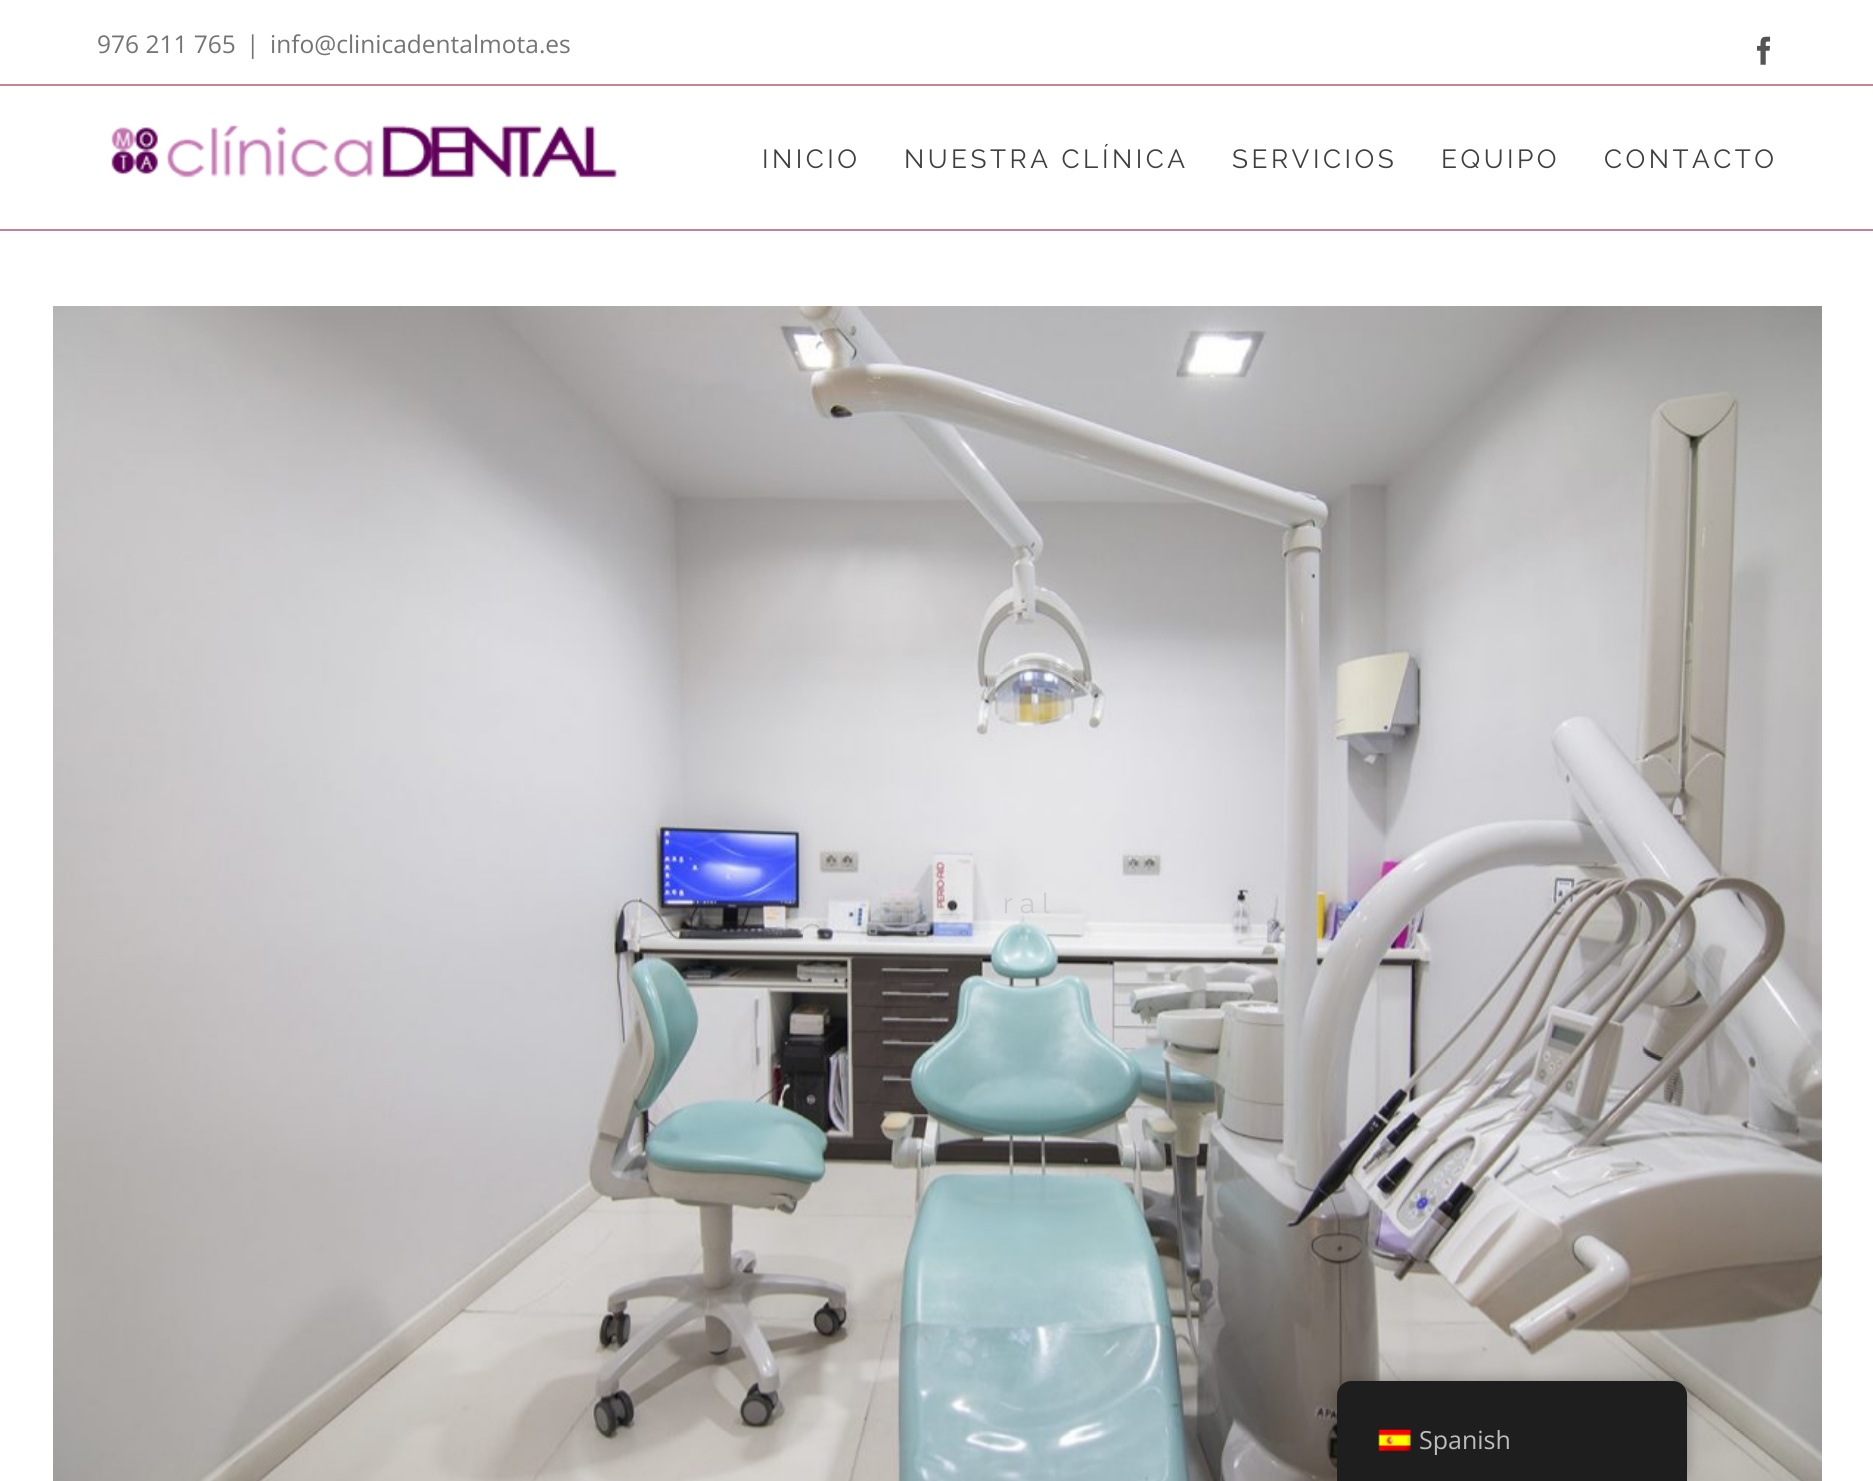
#include <cairo.h>
#include <math.h>
#include <stddef.h>


static void rgb(cairo_t *cr, int r, int g, int b)
{
	cairo_set_source_rgb(cr, r / 255.0, g / 255.0, b / 255.0);
}

static void face(cairo_t *cr, const char *family, double size, int italic, int bold)
{
	cairo_select_font_face(cr, family, italic ? CAIRO_FONT_SLANT_ITALIC : CAIRO_FONT_SLANT_NORMAL,
		bold ? CAIRO_FONT_WEIGHT_BOLD : CAIRO_FONT_WEIGHT_NORMAL);
	cairo_set_font_size(cr, size);
}

static void label(cairo_t *cr, double x, double y, const char *s)
{
	cairo_move_to(cr, x, y);
	cairo_show_text(cr, s);
}

static void tracked(cairo_t *cr, double x, double y, const char *s, double letter, double word)
{
	cairo_move_to(cr, x, y);
	while (*s) {
		char ch[5] = {0};
		int n = 0;
		do ch[n++] = *s++; while ((*s & 0xC0) == 0x80);
		cairo_show_text(cr, ch);
		cairo_rel_move_to(cr, letter + word * (*ch == ' '), 0);
	}
}

static void rect(cairo_t *cr, double x, double y, double w, double h)
{
	cairo_rectangle(cr, x, y, w, h);
	cairo_fill(cr);
}

static void rrect(cairo_t *cr, double x, double y, double w, double h, double r)
{
	cairo_new_sub_path(cr);
	cairo_arc(cr, x + w - r, y + h - r, r, 0, M_PI / 2);
	cairo_arc(cr, x + r, y + h - r, r, M_PI / 2, M_PI);
	cairo_arc(cr, x + r, y + r, r, M_PI, 1.5 * M_PI);
	cairo_arc(cr, x + w - r, y + r, r, 1.5 * M_PI, 2 * M_PI);
	cairo_close_path(cr);
}

static void soft_shadow(cairo_t *cr, double x, double y, double w, double h, double r, double blur, double alpha)
{
	cairo_push_group_with_content(cr, CAIRO_CONTENT_ALPHA);
	cairo_set_operator(cr, CAIRO_OPERATOR_SOURCE);
	for (int i = 15; i >= -15 && fmin(w, h) + blur * i / 3 > 0; i -= 2) {
		double e = blur * i / 6;
		cairo_set_source_rgba(cr, 0, 0, 0, alpha * erfc((i - 1) / 8.5) / 2);
		rrect(cr, x - e, y - e, w + 2 * e, h + 2 * e, fmax(0, fmin(r + e + blur * .6, fmin(w, h) / 2 + e)));
		cairo_fill(cr);
	}
	cairo_pattern_t *soft = cairo_pop_group(cr);
	cairo_mask(cr, soft);
	cairo_pattern_destroy(soft);
}

static void image(cairo_t *cr, const char *path, double x, double y, double w, double h)
{
	cairo_surface_t *image = cairo_image_surface_create_from_png(path);
	cairo_save(cr);
	cairo_set_source_surface(cr, image, x, y);
	cairo_rectangle(cr, x, y, w, h);
	cairo_fill(cr);
	cairo_restore(cr);
	cairo_surface_destroy(image);
}

static void draw(cairo_t *cr) {
	rgb(cr, 255, 255, 255);
	cairo_paint(cr);
	rgb(cr, 200, 129, 148);
	rect(cr, 0, 84, 1873, 2);
	face(cr, "Open Sans", 24.5, 0, 0);
	rgb(cr, 116, 116, 116);
	label(cr, 97, 53, "976 211 765");
	label(cr, 246, 53, "|");
	label(cr, 270, 53, "info@clinicadentalmota.es");
	image(cr, "image0.png", 1757, 36, 14, 29);
	rgb(cr, 200, 129, 148);
	rect(cr, 0, 229, 1873, 2);
	image(cr, "image1.png", 111, 125, 506, 53);
	face(cr, "Raleway", 26.25, 0, 0);
	rgb(cr, 63, 63, 63);
	tracked(cr, 762, 168, "INICIO", 3.5, 0);
	tracked(cr, 904, 168, "NUESTRA CLÍNICA", 3.5, 0);
	tracked(cr, 1232, 168, "SERVICIOS", 3.5, 0);
	tracked(cr, 1441, 168, "EQUIPO", 3.5, 0);
	tracked(cr, 1604, 168, "CONTACTO", 3.5, 0);
	image(cr, "image2.png", 53, 306, 1769, 1175);
	face(cr, "Raleway", 28, 0, 0);
	rgb(cr, 203, 203, 206);
	tracked(cr, 1003, 913, "ral", 7, 0);
	rgb(cr, 0, 0, 0);
	soft_shadow(cr, 1337, 1381, 350, 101, 14, 7, 0.25);
	rgb(cr, 30, 30, 30);
	cairo_new_path(cr);
	cairo_move_to(cr, 1351, 1381);
	cairo_line_to(cr, 1673, 1381);
	cairo_curve_to(cr, 1680.5, 1381, 1687, 1387.5, 1687, 1395);
	cairo_line_to(cr, 1687, 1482);
	cairo_line_to(cr, 1337, 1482);
	cairo_line_to(cr, 1337, 1395);
	cairo_curve_to(cr, 1337, 1387.5, 1343.5, 1381, 1351, 1381);
	cairo_close_path(cr);
	cairo_fill(cr);
	image(cr, "image3.png", 1378, 1429, 33, 22);
	face(cr, "Open Sans", 25, 0, 0);
	rgb(cr, 189, 189, 189);
	label(cr, 1419, 1449, "Spanish");
}

int main(void) {
	cairo_surface_t *surface = cairo_image_surface_create(CAIRO_FORMAT_RGB24, 1873, 1481);
	cairo_t *cr = cairo_create(surface);
	cairo_font_options_t *options = cairo_font_options_create();
	cairo_font_options_set_hint_metrics(options, CAIRO_HINT_METRICS_OFF);
	cairo_font_options_set_hint_style(options, CAIRO_HINT_STYLE_NONE);
	cairo_set_font_options(cr, options);
	cairo_set_miter_limit(cr, 4);
	draw(cr);
	cairo_surface_write_to_png(surface, "render.png");
	cairo_font_options_destroy(options);
	cairo_destroy(cr);
	cairo_surface_destroy(surface);
	return 0;
}
